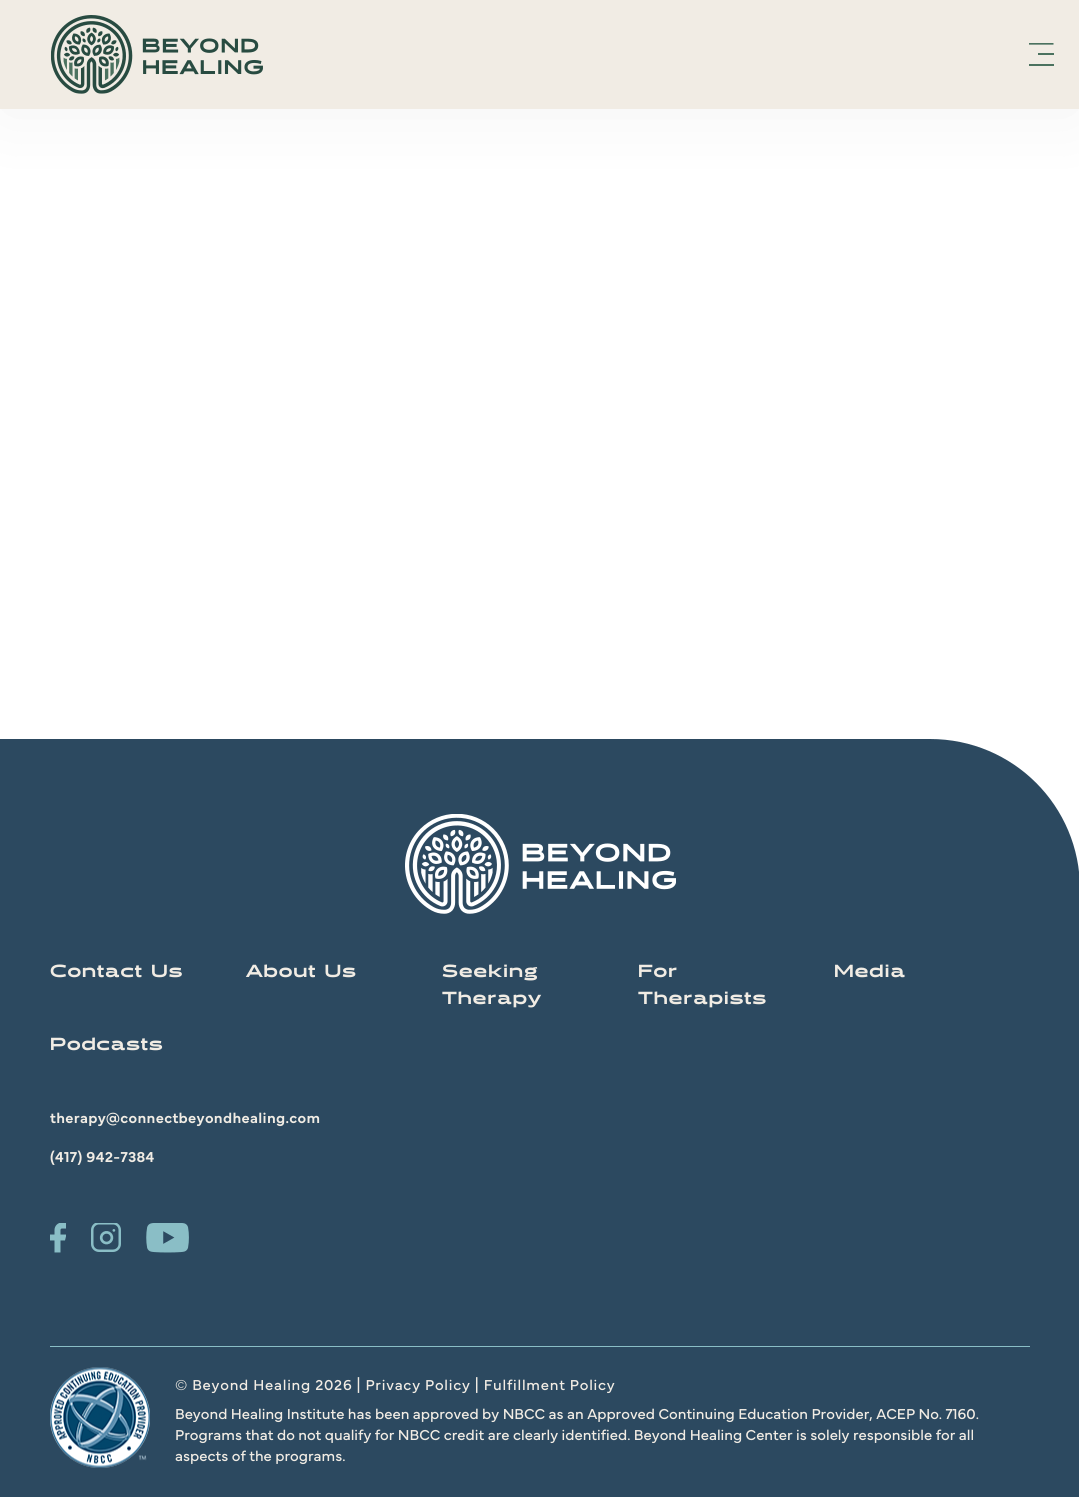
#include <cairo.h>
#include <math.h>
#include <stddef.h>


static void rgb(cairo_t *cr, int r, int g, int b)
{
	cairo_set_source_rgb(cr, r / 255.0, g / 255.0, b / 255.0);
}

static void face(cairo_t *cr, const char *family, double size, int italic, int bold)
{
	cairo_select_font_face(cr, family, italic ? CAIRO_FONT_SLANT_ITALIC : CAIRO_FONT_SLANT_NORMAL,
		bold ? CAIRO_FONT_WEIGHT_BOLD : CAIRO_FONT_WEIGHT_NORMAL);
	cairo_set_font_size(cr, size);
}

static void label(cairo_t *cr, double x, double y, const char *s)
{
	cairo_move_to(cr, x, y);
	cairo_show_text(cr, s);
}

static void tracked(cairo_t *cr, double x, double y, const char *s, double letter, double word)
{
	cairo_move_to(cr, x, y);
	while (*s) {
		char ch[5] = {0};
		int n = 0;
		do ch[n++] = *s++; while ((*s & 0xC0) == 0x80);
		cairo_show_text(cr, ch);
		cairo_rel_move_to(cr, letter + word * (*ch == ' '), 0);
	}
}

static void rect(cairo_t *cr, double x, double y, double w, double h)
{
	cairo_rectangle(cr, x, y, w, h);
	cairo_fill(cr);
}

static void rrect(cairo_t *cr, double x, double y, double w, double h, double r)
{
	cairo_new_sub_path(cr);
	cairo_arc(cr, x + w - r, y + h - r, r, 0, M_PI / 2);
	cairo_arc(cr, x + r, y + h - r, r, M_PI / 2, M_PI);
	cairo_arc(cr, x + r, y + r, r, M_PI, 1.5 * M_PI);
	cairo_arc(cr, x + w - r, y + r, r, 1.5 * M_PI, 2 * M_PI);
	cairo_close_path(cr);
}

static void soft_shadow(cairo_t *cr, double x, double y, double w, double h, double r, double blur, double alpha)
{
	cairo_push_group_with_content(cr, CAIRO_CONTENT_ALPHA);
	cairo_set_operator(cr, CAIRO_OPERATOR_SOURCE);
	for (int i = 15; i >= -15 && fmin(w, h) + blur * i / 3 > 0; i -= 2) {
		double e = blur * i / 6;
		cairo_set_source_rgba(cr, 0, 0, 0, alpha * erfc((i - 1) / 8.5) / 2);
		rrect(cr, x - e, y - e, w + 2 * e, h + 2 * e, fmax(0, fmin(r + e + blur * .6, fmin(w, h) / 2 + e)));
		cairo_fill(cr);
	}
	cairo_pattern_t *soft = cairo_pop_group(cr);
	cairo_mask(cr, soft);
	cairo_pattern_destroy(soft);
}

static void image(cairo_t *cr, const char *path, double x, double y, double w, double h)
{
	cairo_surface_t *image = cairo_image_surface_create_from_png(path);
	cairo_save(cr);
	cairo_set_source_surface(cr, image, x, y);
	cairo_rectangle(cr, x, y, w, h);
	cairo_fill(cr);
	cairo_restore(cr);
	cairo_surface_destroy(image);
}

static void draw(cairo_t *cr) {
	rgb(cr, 255, 255, 255);
	cairo_paint(cr);
	rgb(cr, 0, 0, 0);
	soft_shadow(cr, 0, 4, 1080, 109, 0, 37.5, 0.05);
	rgb(cr, 241, 236, 228);
	rect(cr, 0, 0, 1079, 109);
	image(cr, "image0.png", 50, 15, 213, 79);
	cairo_save(cr);
	cairo_rectangle(cr, 1028, 43, 27, 23);
	cairo_clip(cr);
	cairo_new_path(cr);
	cairo_move_to(cr, 1029, 43.5);
	cairo_line_to(cr, 1053.5, 43.5);
	rgb(cr, 75, 114, 95);
	cairo_set_line_width(cr, 2.3);
	cairo_stroke(cr);
	cairo_restore(cr);
	rgb(cr, 75, 114, 95);
	rect(cr, 1038, 53, 16, 2);
	rect(cr, 1029, 64, 25, 2);
	rgb(cr, 44, 73, 96);
	cairo_new_path(cr);
	cairo_move_to(cr, 0, 739);
	cairo_line_to(cr, 930, 739);
	cairo_curve_to(cr, 1013, 739, 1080, 806, 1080, 889);
	cairo_line_to(cr, 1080, 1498);
	cairo_line_to(cr, 0, 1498);
	cairo_close_path(cr);
	cairo_fill(cr);
	image(cr, "image1.png", 405, 814, 271, 100);
	face(cr, "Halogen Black", 17.5, 0, 0);
	rgb(cr, 241, 236, 228);
	tracked(cr, 50, 977, "Contact Us", 0.9, 0);
	tracked(cr, 246, 977, "About Us", 0.9, 0);
	tracked(cr, 442, 977, "Seeking", 0.9, 0);
	tracked(cr, 442, 1004, "Therapy", 0.9, 0);
	tracked(cr, 638, 977, "For", 0.9, 0);
	tracked(cr, 638, 1004, "Therapists", 0.9, 0);
	tracked(cr, 834, 977, "Media", 0.9, 0);
	tracked(cr, 50, 1050, "Podcasts", 0.9, 0);
	face(cr, "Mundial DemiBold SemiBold", 15, 0, 0);
	tracked(cr, 50, 1123, "therapy@connectbeyondhealing.com", 0.3, 0);
	tracked(cr, 50, 1162, "(417) 942-7384", 0.3, 0);
	image(cr, "image2.png", 50, 1223, 16, 30);
	image(cr, "image3.png", 91, 1223, 30, 29);
	image(cr, "image4.png", 146, 1223, 43, 30);
	rgb(cr, 138, 190, 198);
	rect(cr, 50, 1346, 980, 1);
	face(cr, "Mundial", 15, 0, 0);
	rgb(cr, 241, 236, 228);
	tracked(cr, 175, 1390, "© Beyond Healing 2026 | Privacy Policy | Fulfillment Policy", 0.75, 0);
	image(cr, "image5.png", 50, 1367, 100, 101);
	label(cr, 175, 1419, "Beyond Healing Institute has been approved by NBCC as an Approved Continuing Education Provider, ACEP No. 7160.");
	label(cr, 175, 1440, "Programs that do not qualify for NBCC credit are clearly identified. Beyond Healing Center is solely responsible for all");
	label(cr, 175, 1461, "aspects of the programs.");
}

int main(void) {
	cairo_surface_t *surface = cairo_image_surface_create(CAIRO_FORMAT_RGB24, 1079, 1497);
	cairo_t *cr = cairo_create(surface);
	cairo_font_options_t *options = cairo_font_options_create();
	cairo_font_options_set_hint_metrics(options, CAIRO_HINT_METRICS_OFF);
	cairo_font_options_set_hint_style(options, CAIRO_HINT_STYLE_NONE);
	cairo_set_font_options(cr, options);
	cairo_set_miter_limit(cr, 4);
	draw(cr);
	cairo_surface_write_to_png(surface, "render.png");
	cairo_font_options_destroy(options);
	cairo_destroy(cr);
	cairo_surface_destroy(surface);
	return 0;
}
